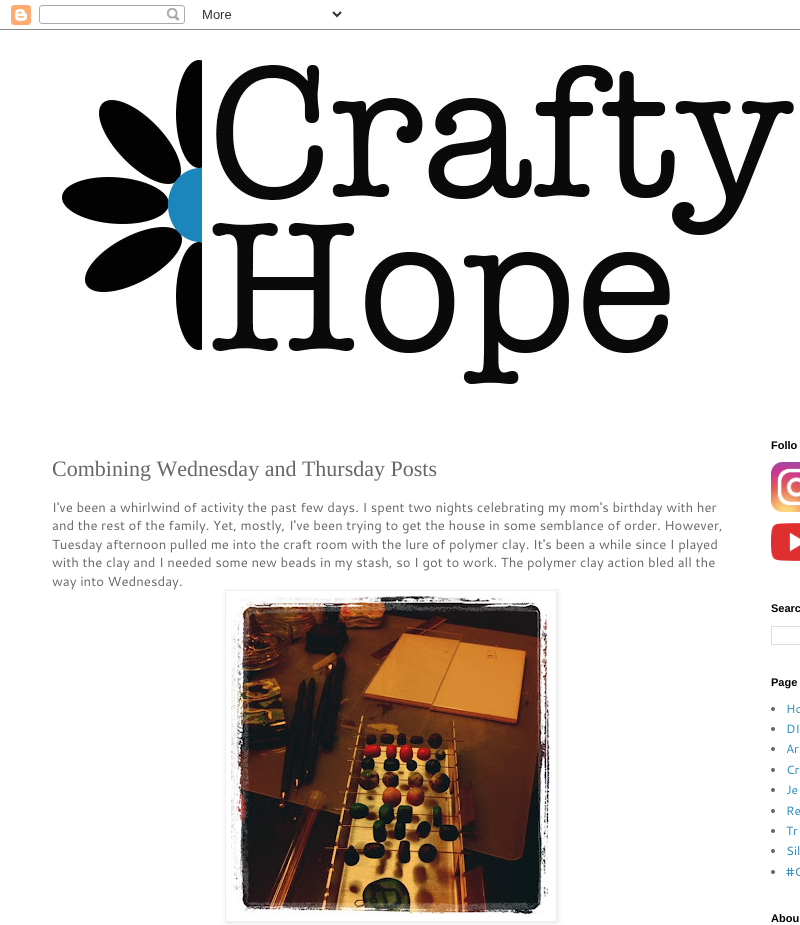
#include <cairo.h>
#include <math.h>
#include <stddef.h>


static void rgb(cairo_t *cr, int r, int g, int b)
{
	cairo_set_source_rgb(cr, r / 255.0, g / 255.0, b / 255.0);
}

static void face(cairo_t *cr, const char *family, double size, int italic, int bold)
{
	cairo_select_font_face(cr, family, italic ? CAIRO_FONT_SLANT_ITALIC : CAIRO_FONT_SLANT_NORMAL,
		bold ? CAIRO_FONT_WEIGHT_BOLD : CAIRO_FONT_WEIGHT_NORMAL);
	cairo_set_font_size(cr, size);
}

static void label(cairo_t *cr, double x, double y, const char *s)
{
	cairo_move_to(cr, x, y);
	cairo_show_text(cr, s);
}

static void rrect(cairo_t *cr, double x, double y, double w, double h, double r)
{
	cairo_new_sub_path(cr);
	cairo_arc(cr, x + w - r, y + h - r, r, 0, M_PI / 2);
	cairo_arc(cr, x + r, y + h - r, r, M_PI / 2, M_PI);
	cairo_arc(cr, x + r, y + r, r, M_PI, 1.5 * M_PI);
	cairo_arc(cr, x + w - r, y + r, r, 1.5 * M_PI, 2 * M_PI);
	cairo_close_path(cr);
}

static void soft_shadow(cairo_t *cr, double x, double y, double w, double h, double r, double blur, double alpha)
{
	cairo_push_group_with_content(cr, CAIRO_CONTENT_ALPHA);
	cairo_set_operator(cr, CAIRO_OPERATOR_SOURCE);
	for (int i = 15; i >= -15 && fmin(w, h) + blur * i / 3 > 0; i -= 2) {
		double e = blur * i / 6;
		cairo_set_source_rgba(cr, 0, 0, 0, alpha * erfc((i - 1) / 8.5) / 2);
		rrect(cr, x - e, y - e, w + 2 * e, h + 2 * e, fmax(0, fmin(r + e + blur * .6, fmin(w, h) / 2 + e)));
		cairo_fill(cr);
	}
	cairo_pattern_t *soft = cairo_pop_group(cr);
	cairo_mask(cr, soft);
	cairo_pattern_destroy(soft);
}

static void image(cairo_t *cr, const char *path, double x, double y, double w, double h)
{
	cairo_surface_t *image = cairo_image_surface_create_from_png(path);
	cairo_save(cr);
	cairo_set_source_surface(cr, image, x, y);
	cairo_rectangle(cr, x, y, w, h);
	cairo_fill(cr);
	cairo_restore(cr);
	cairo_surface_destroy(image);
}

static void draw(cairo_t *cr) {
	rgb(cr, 255, 255, 255);
	cairo_paint(cr);
	image(cr, "image0.png", 0, 5, 800, 25);
	image(cr, "image1.png", 57, 56, 743, 328);
	face(cr, "Liberation Serif", 22, 0, 0);
	rgb(cr, 102, 102, 102);
	label(cr, 52, 476, "Combining Wednesday and Thursday Posts");
	face(cr, "Cantarell", 13.2, 0, 0);
	label(cr, 52, 512, "I've been a whirlwind of activity the past few days. I spent two nights celebrating my mom's birthday with her");
	label(cr, 52, 530, "and the rest of the family. Yet, mostly, I've been trying to get the house in some semblance of order. However,");
	label(cr, 52, 549, "Tuesday afternoon pulled me into the craft room with the lure of polymer clay. It's been a while since I played");
	label(cr, 52, 567, "with the clay and I needed some new beads in my stash, so I got to work. The polymer clay action bled all the");
	label(cr, 52, 586, "way into Wednesday.");
	cairo_save(cr);
	cairo_set_fill_rule(cr, CAIRO_FILL_RULE_EVEN_ODD);
	cairo_new_path(cr);
	cairo_move_to(cr, 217, 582);
	cairo_line_to(cr, 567, 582);
	cairo_line_to(cr, 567, 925);
	cairo_line_to(cr, 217, 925);
	cairo_close_path(cr);
	cairo_move_to(cr, 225, 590);
	cairo_line_to(cr, 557, 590);
	cairo_line_to(cr, 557, 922);
	cairo_line_to(cr, 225, 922);
	cairo_close_path(cr);
	cairo_clip(cr);
	rgb(cr, 0, 0, 0);
	soft_shadow(cr, 226, 591, 332, 332, 0, 2.5, 0.1);
	cairo_restore(cr);
	cairo_rectangle(cr, 225.5, 590.5, 331, 331);
	rgb(cr, 238, 238, 238);
	cairo_set_line_width(cr, 1);
	cairo_stroke(cr);
	image(cr, "image2.png", 231, 596, 320, 320);
	face(cr, "Liberation Sans", 11, 0, 1);
	rgb(cr, 0, 0, 0);
	label(cr, 771, 449, "Follo");
	image(cr, "image3.png", 771, 462, 29, 50);
	image(cr, "image4.png", 771, 523, 29, 38);
	label(cr, 771, 612, "Searc");
	cairo_rectangle(cr, 771.5, 626.5, 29, 18);
	rgb(cr, 221, 221, 221);
	cairo_stroke(cr);
	rgb(cr, 0, 0, 0);
	label(cr, 771, 686, "Page");
	rgb(cr, 102, 102, 102);
	cairo_new_path(cr);
	cairo_arc(cr, 773, 709, 2, 0, 2 * M_PI);
	cairo_fill(cr);
	face(cr, "Cantarell", 12, 0, 0);
	rgb(cr, 34, 136, 187);
	label(cr, 786, 713, "Ho");
	rgb(cr, 102, 102, 102);
	cairo_new_path(cr);
	cairo_arc(cr, 773, 729, 2, 0, 2 * M_PI);
	cairo_fill(cr);
	rgb(cr, 34, 136, 187);
	label(cr, 786, 733, "DI");
	rgb(cr, 102, 102, 102);
	cairo_new_path(cr);
	cairo_arc(cr, 773, 749, 2, 0, 2 * M_PI);
	cairo_fill(cr);
	rgb(cr, 34, 136, 187);
	label(cr, 786, 753, "Ar");
	rgb(cr, 102, 102, 102);
	cairo_new_path(cr);
	cairo_arc(cr, 773, 770, 2, 0, 2 * M_PI);
	cairo_fill(cr);
	rgb(cr, 34, 136, 187);
	label(cr, 786, 774, "Cr");
	rgb(cr, 102, 102, 102);
	cairo_new_path(cr);
	cairo_arc(cr, 773, 790, 2, 0, 2 * M_PI);
	cairo_fill(cr);
	rgb(cr, 34, 136, 187);
	label(cr, 786, 794, "Je");
	rgb(cr, 102, 102, 102);
	cairo_new_path(cr);
	cairo_arc(cr, 773, 811, 2, 0, 2 * M_PI);
	cairo_fill(cr);
	rgb(cr, 34, 136, 187);
	label(cr, 786, 815, "Re");
	rgb(cr, 102, 102, 102);
	cairo_new_path(cr);
	cairo_arc(cr, 773, 831, 2, 0, 2 * M_PI);
	cairo_fill(cr);
	rgb(cr, 34, 136, 187);
	label(cr, 786, 835, "Tr");
	rgb(cr, 102, 102, 102);
	cairo_new_path(cr);
	cairo_arc(cr, 773, 851, 2, 0, 2 * M_PI);
	cairo_fill(cr);
	rgb(cr, 34, 136, 187);
	label(cr, 786, 855, "Sil");
	rgb(cr, 102, 102, 102);
	cairo_new_path(cr);
	cairo_arc(cr, 773, 872, 2, 0, 2 * M_PI);
	cairo_fill(cr);
	rgb(cr, 34, 136, 187);
	label(cr, 786, 876, "#C");
	face(cr, "Liberation Sans", 11, 0, 1);
	rgb(cr, 0, 0, 0);
	label(cr, 771, 922, "Abou");
}

int main(void) {
	cairo_surface_t *surface = cairo_image_surface_create(CAIRO_FORMAT_RGB24, 800, 925);
	cairo_t *cr = cairo_create(surface);
	cairo_font_options_t *options = cairo_font_options_create();
	cairo_font_options_set_hint_metrics(options, CAIRO_HINT_METRICS_OFF);
	cairo_font_options_set_hint_style(options, CAIRO_HINT_STYLE_NONE);
	cairo_set_font_options(cr, options);
	cairo_set_miter_limit(cr, 4);
	draw(cr);
	cairo_surface_write_to_png(surface, "render.png");
	cairo_font_options_destroy(options);
	cairo_destroy(cr);
	cairo_surface_destroy(surface);
	return 0;
}
